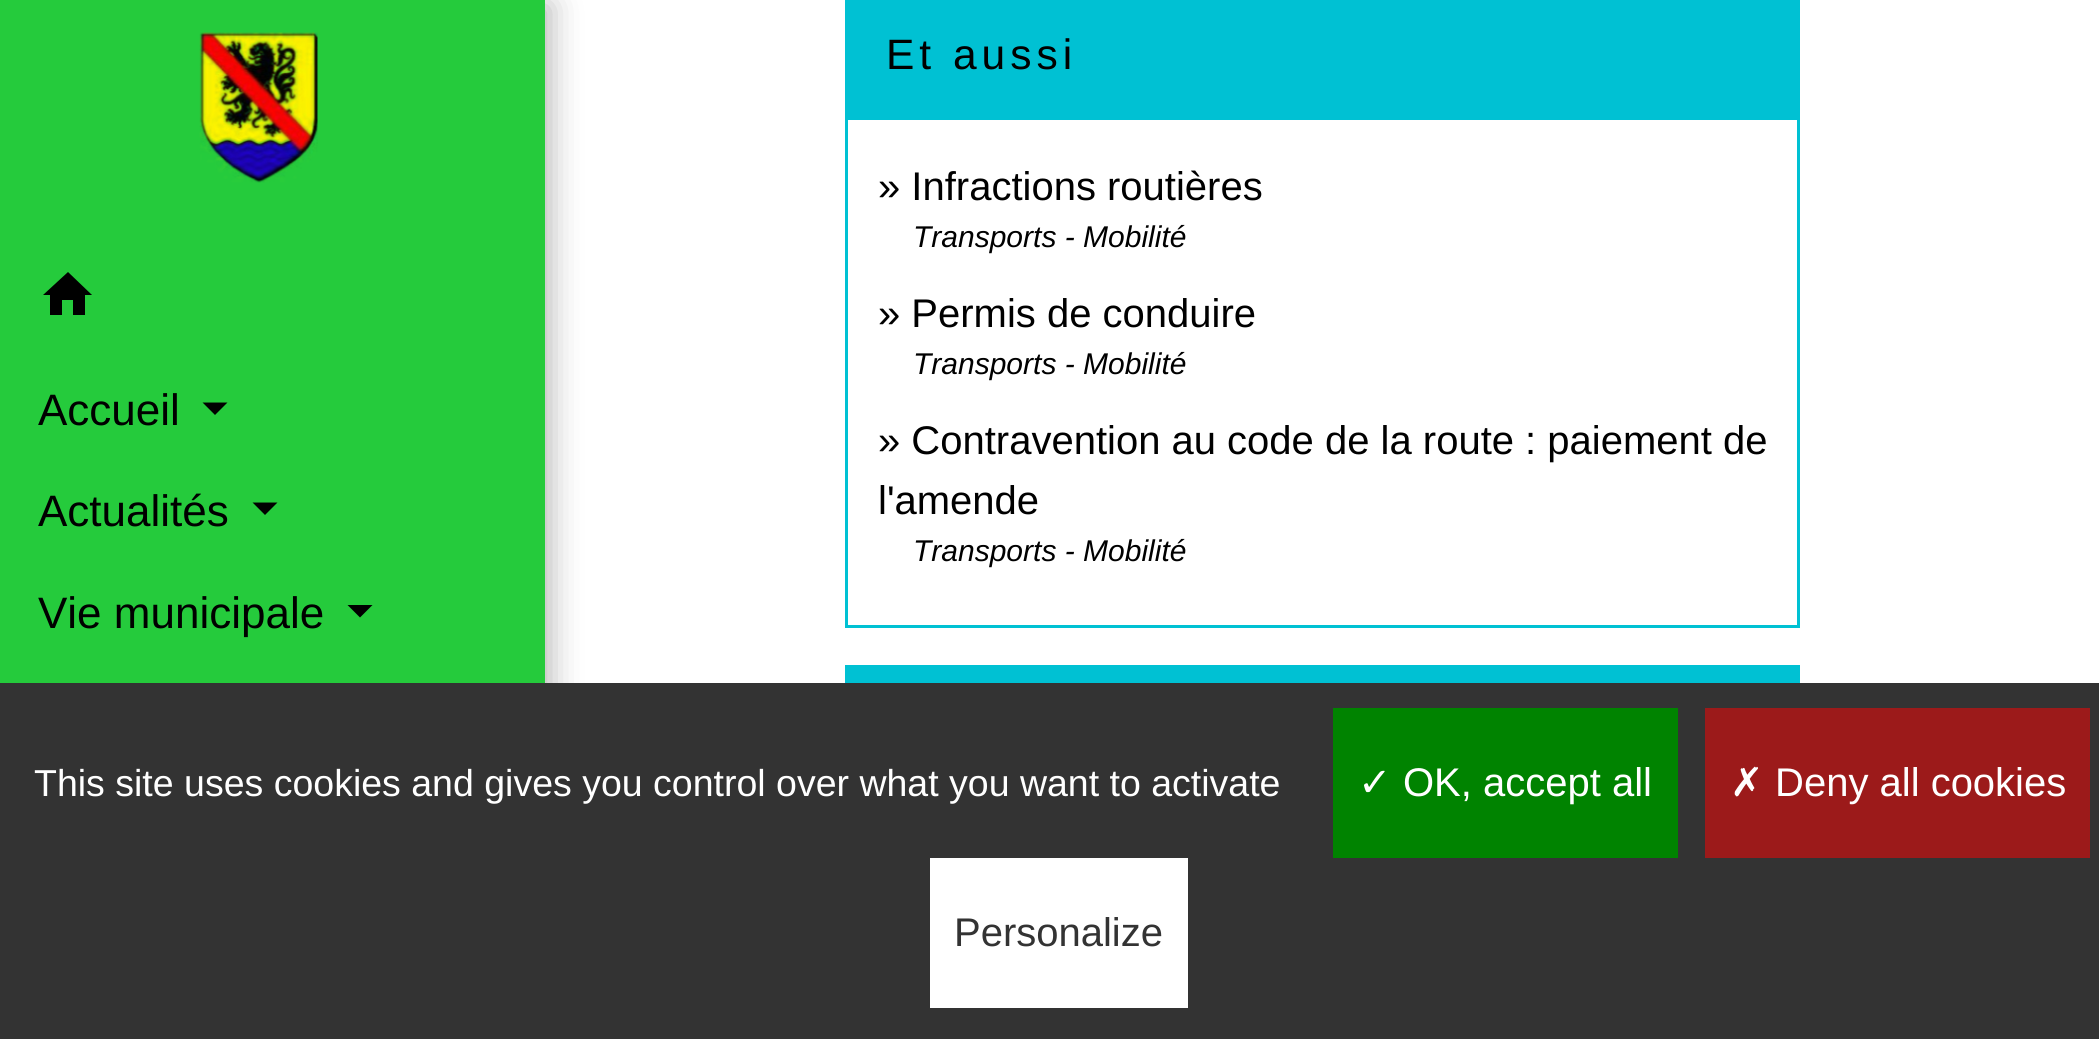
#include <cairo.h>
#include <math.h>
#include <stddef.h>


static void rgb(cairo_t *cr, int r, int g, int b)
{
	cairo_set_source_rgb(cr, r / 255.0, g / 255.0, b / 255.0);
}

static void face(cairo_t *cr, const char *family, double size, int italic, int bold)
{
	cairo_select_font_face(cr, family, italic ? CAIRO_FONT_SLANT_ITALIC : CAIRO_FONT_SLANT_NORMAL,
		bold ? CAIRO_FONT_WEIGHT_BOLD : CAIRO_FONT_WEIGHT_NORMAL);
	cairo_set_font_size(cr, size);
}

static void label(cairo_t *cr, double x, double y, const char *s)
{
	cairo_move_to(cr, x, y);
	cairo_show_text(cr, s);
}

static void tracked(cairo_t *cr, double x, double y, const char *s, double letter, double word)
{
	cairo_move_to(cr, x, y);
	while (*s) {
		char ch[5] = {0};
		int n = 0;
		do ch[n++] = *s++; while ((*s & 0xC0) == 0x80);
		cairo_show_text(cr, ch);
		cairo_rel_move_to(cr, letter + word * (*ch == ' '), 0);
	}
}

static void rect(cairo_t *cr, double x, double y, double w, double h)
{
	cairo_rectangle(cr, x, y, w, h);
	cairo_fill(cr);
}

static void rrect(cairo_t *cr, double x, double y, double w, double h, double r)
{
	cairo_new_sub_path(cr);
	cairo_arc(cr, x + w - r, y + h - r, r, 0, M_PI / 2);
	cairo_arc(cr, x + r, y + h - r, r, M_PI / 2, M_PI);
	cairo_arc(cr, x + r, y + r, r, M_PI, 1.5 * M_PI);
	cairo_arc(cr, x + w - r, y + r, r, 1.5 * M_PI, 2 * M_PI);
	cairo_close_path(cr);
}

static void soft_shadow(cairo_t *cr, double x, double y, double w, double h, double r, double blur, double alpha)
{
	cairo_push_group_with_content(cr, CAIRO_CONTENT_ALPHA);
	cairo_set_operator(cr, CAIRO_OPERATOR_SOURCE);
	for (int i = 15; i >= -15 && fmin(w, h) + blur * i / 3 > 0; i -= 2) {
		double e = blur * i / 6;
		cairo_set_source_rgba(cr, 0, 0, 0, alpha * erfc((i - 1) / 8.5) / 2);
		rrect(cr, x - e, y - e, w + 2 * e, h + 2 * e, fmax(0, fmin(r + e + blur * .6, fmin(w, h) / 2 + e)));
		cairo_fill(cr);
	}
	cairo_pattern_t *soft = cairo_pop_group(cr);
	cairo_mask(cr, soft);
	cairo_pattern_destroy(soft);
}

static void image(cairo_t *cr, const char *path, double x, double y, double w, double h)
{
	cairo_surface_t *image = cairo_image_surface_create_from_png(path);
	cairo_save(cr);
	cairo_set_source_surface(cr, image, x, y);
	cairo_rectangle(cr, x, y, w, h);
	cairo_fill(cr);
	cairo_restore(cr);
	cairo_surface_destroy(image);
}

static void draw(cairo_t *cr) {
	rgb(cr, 255, 255, 255);
	cairo_paint(cr);
	rgb(cr, 0, 0, 0);
	soft_shadow(cr, 5, 5, 545, 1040, 0, 16, 0.3);
	rgb(cr, 37, 203, 60);
	rect(cr, 0, 0, 545, 683);
	image(cr, "image0.png", 199, 32, 119, 151);
	rgb(cr, 0, 0, 0);
	cairo_new_path(cr);
	cairo_move_to(cr, 62, 315);
	cairo_line_to(cr, 50, 315);
	cairo_line_to(cr, 50, 295);
	cairo_line_to(cr, 43, 295);
	cairo_line_to(cr, 68, 272);
	cairo_line_to(cr, 92, 295);
	cairo_line_to(cr, 85, 295);
	cairo_line_to(cr, 85, 315);
	cairo_line_to(cr, 73, 315);
	cairo_line_to(cr, 73, 300);
	cairo_line_to(cr, 62, 300);
	cairo_close_path(cr);
	cairo_fill(cr);
	face(cr, "Liberation Sans", 44, 0, 0);
	label(cr, 38, 425, "Accueil");
	cairo_new_path(cr);
	cairo_move_to(cr, 202.5, 402.5);
	cairo_line_to(cr, 227.5, 402.5);
	cairo_line_to(cr, 215, 415);
	cairo_close_path(cr);
	cairo_fill(cr);
	label(cr, 38, 526, "Actualités");
	cairo_new_path(cr);
	cairo_move_to(cr, 252.5, 502.5);
	cairo_line_to(cr, 277.5, 502.5);
	cairo_line_to(cr, 265, 515);
	cairo_close_path(cr);
	cairo_fill(cr);
	label(cr, 38, 628, "Vie municipale");
	cairo_new_path(cr);
	cairo_move_to(cr, 347.5, 605);
	cairo_line_to(cr, 372.5, 605);
	cairo_line_to(cr, 360, 617.5);
	cairo_close_path(cr);
	cairo_fill(cr);
	cairo_rectangle(cr, 846.5, -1.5, 952, 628);
	rgb(cr, 0, 193, 211);
	cairo_set_line_width(cr, 3);
	cairo_stroke(cr);
	rect(cr, 848, 0, 949, 120);
	face(cr, "Liberation Sans", 42.5, 0, 0);
	rgb(cr, 0, 0, 0);
	tracked(cr, 886, 69, "Et aussi", 5, 0);
	face(cr, "Liberation Sans", 40, 0, 0);
	label(cr, 878, 200, "» Infractions routières");
	face(cr, "Liberation Sans", 30, 1, 0);
	label(cr, 913, 247, "Transports - Mobilité");
	face(cr, "Liberation Sans", 40, 0, 0);
	label(cr, 878, 327, "» Permis de conduire");
	face(cr, "Liberation Sans", 30, 1, 0);
	label(cr, 913, 374, "Transports - Mobilité");
	face(cr, "Liberation Sans", 40, 0, 0);
	label(cr, 878, 454, "» Contravention au code de la route : paiement de");
	label(cr, 878, 514, "l'amende");
	face(cr, "Liberation Sans", 30, 1, 0);
	label(cr, 913, 561, "Transports - Mobilité");
	cairo_rectangle(cr, 846.5, 666.5, 952, 322);
	rgb(cr, 0, 193, 211);
	cairo_stroke(cr);
	rect(cr, 848, 668, 949, 15);
	rgb(cr, 51, 51, 51);
	rect(cr, 0, 683, 2099, 356);
	face(cr, "Liberation Sans", 37.5, 0, 0);
	rgb(cr, 255, 255, 255);
	label(cr, 34, 796, "This site uses cookies and gives you control over what you want to activate");
	rgb(cr, 0, 131, 0);
	rect(cr, 1333, 708, 345, 150);
	face(cr, "DejaVu Sans", 40, 0, 0);
	rgb(cr, 255, 255, 255);
	label(cr, 1358, 796, "✓");
	face(cr, "Liberation Sans", 40, 0, 0);
	label(cr, 1403, 796, "OK, accept all");
	rgb(cr, 156, 26, 26);
	rect(cr, 1705, 708, 385, 150);
	face(cr, "DejaVu Sans", 40, 0, 0);
	rgb(cr, 255, 255, 255);
	label(cr, 1730, 796, "✗");
	face(cr, "Liberation Sans", 40, 0, 0);
	label(cr, 1775, 796, "Deny all cookies");
	rect(cr, 930, 858, 258, 150);
	rgb(cr, 51, 51, 51);
	label(cr, 954, 946, "Personalize");
}

int main(void) {
	cairo_surface_t *surface = cairo_image_surface_create(CAIRO_FORMAT_RGB24, 2099, 1039);
	cairo_t *cr = cairo_create(surface);
	cairo_font_options_t *options = cairo_font_options_create();
	cairo_font_options_set_hint_metrics(options, CAIRO_HINT_METRICS_OFF);
	cairo_font_options_set_hint_style(options, CAIRO_HINT_STYLE_NONE);
	cairo_set_font_options(cr, options);
	cairo_set_miter_limit(cr, 4);
	draw(cr);
	cairo_surface_write_to_png(surface, "render.png");
	cairo_font_options_destroy(options);
	cairo_destroy(cr);
	cairo_surface_destroy(surface);
	return 0;
}
